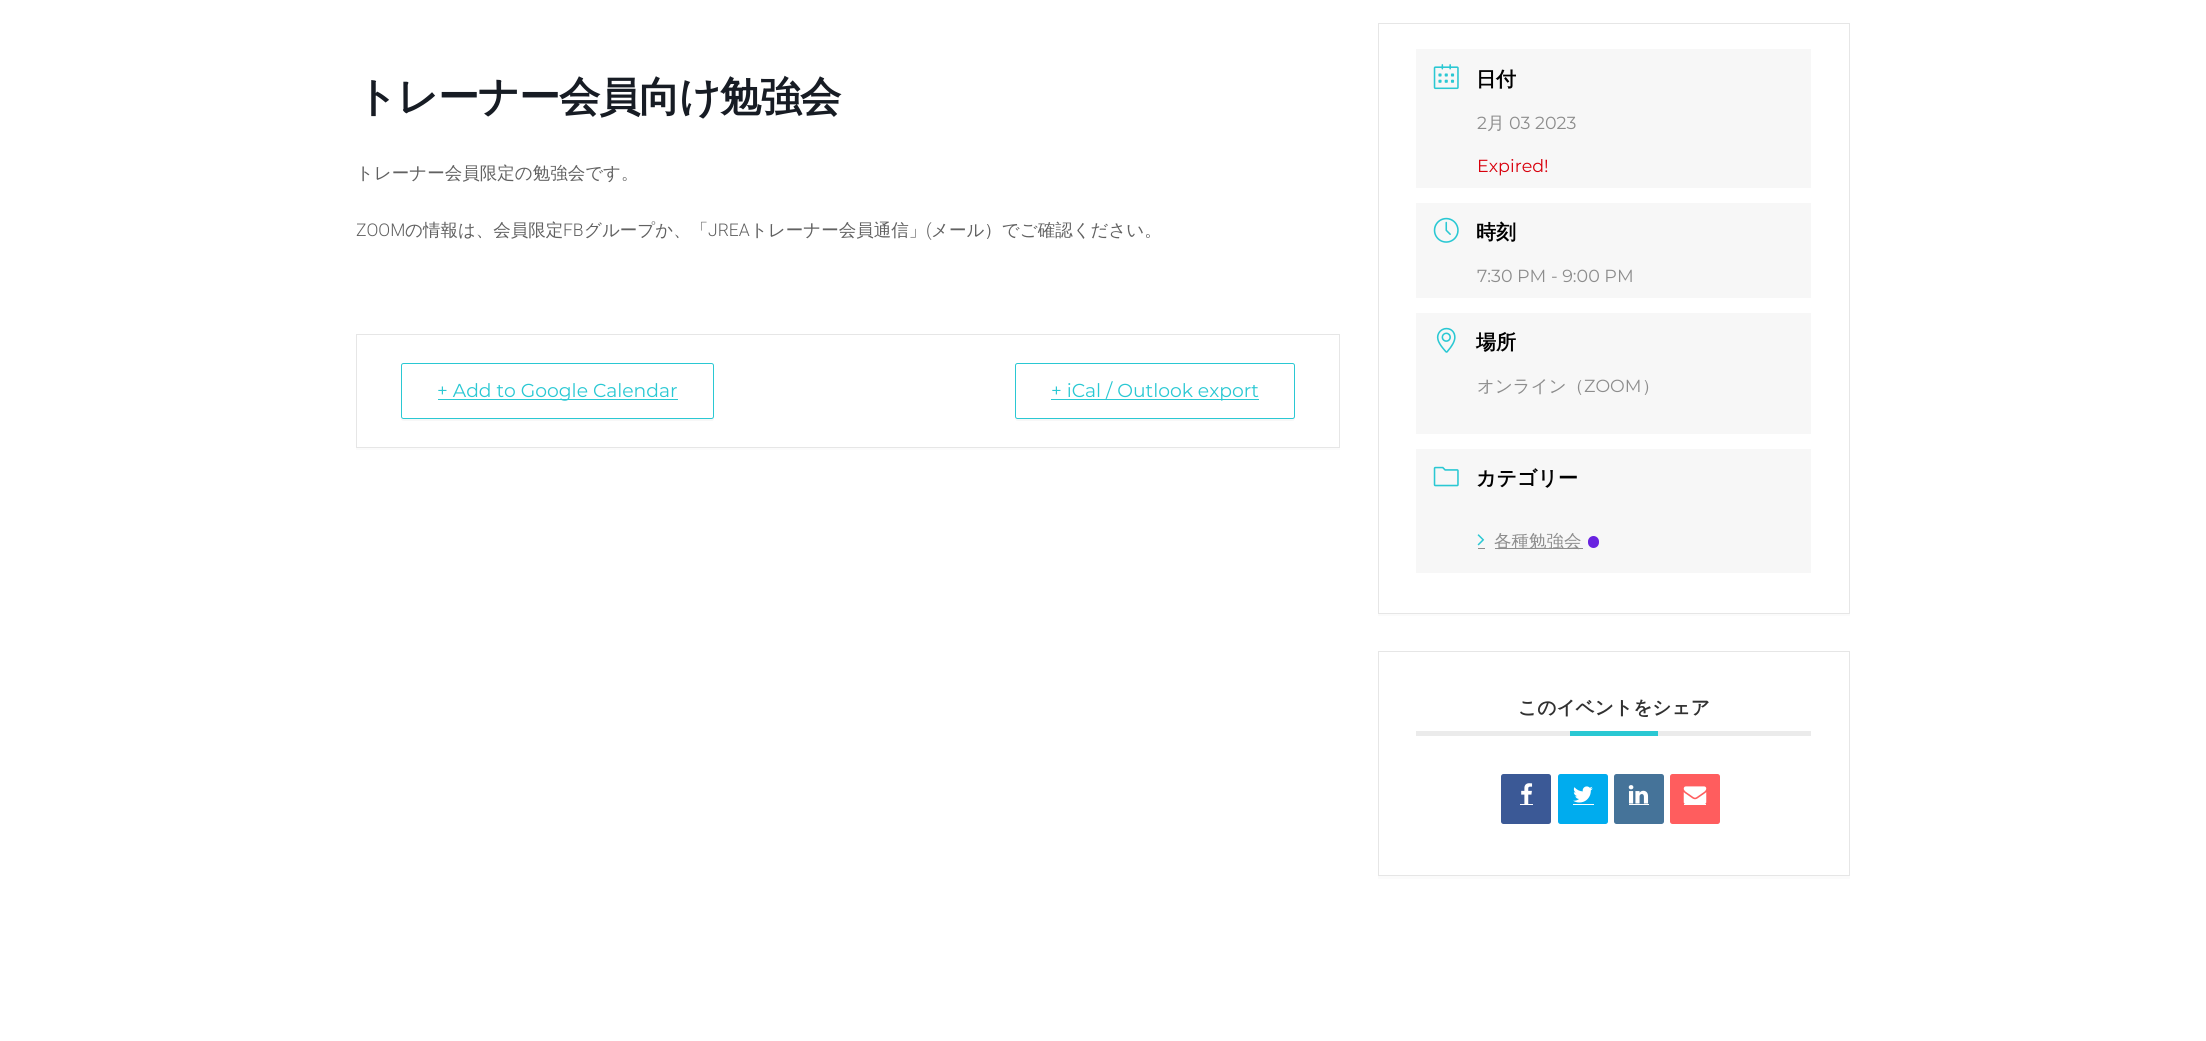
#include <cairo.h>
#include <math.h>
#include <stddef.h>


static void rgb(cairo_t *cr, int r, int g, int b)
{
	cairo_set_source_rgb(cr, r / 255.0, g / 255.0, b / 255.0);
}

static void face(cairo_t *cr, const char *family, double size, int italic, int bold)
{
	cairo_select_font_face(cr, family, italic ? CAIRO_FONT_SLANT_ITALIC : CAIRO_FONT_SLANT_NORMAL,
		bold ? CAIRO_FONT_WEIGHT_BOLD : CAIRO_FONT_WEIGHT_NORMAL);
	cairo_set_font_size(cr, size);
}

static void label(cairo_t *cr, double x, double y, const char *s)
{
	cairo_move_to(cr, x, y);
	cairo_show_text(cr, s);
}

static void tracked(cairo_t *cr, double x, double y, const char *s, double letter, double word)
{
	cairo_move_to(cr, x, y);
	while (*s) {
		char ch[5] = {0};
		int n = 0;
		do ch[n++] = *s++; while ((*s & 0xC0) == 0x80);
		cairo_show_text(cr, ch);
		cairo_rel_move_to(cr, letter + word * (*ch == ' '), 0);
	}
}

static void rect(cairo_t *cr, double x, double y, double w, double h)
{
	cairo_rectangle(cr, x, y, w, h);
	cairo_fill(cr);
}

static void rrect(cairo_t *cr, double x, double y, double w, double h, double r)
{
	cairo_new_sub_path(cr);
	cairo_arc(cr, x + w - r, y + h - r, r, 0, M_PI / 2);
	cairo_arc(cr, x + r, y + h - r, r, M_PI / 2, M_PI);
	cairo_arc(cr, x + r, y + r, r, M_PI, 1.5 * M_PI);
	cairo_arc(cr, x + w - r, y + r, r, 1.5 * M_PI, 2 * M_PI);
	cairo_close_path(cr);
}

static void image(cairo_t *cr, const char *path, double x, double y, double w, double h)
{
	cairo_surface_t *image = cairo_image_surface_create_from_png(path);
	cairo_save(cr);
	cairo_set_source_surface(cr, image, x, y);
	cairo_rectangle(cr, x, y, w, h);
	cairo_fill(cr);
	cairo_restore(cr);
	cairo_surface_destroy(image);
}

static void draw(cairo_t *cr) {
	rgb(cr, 255, 255, 255);
	cairo_paint(cr);
	face(cr, "WenQuanYi Zen Hei", 41.25, 0, 1);
	rgb(cr, 23, 28, 36);
	tracked(cr, 356, 111, "トレーナー会員向け勉強会", -1.25, 0);
	face(cr, "WenQuanYi Zen Hei Medium", 17.5, 0, 0);
	rgb(cr, 97, 97, 97);
	label(cr, 356, 179, "トレーナー会員限定の勉強会です。");
	face(cr, "Roboto Light", 17.5, 0, 0);
	label(cr, 356, 236, "ZOOM");
	face(cr, "WenQuanYi Zen Hei Medium", 17.5, 0, 0);
	label(cr, 405, 236, "の情報は、会員限定");
	face(cr, "Roboto Light", 17.5, 0, 0);
	label(cr, 563, 236, "FB");
	face(cr, "WenQuanYi Zen Hei Medium", 17.5, 0, 0);
	label(cr, 584, 236, "グループか、「");
	face(cr, "Roboto Light", 17.5, 0, 0);
	label(cr, 708, 236, "JREA");
	face(cr, "WenQuanYi Zen Hei Medium", 17.5, 0, 0);
	label(cr, 750, 236, "トレーナー会員通信」");
	face(cr, "Roboto Light", 17.5, 0, 0);
	label(cr, 926, 236, "(");
	face(cr, "WenQuanYi Zen Hei Medium", 17.5, 0, 0);
	label(cr, 931, 236, "メール）でご確認ください。");
	rgb(cr, 251, 251, 251);
	cairo_new_path(cr);
	cairo_move_to(cr, 356, 336);
	cairo_line_to(cr, 356, 450);
	cairo_line_to(cr, 1340, 450);
	cairo_line_to(cr, 1340, 448);
	cairo_line_to(cr, 356, 448);
	cairo_close_path(cr);
	cairo_fill(cr);
	cairo_rectangle(cr, 356.5, 334.5, 983, 113);
	rgb(cr, 230, 230, 230);
	cairo_set_line_width(cr, 1);
	cairo_stroke(cr);
	rgb(cr, 247, 247, 247);
	cairo_new_path(cr);
	cairo_move_to(cr, 401, 366);
	cairo_line_to(cr, 401, 418);
	cairo_curve_to(cr, 401, 420, 402, 421, 404, 421);
	cairo_line_to(cr, 712, 421);
	cairo_curve_to(cr, 713, 421, 714, 420, 714, 418);
	cairo_line_to(cr, 714, 366);
	cairo_line_to(cr, 714, 416);
	cairo_curve_to(cr, 714, 418, 713, 419, 711, 419);
	cairo_line_to(cr, 404, 419);
	cairo_curve_to(cr, 402, 419, 401, 418, 401, 416);
	cairo_close_path(cr);
	cairo_fill(cr);
	rrect(cr, 401.5, 363.5, 312, 55, 2);
	rgb(cr, 42, 200, 211);
	cairo_stroke(cr);
	rect(cr, 438, 399, 240, 1);
	face(cr, "Montserrat", 18.75, 0, 0);
	label(cr, 437, 397, "+ Add to Google Calendar");
	rgb(cr, 247, 247, 247);
	cairo_new_path(cr);
	cairo_move_to(cr, 1015, 416);
	cairo_curve_to(cr, 1015, 418, 1015, 421, 1018, 421);
	cairo_line_to(cr, 1292, 421);
	cairo_curve_to(cr, 1295, 421, 1295, 418, 1295, 416);
	cairo_curve_to(cr, 1295, 418, 1294, 419, 1292, 419);
	cairo_line_to(cr, 1018, 419);
	cairo_curve_to(cr, 1016, 419, 1015, 418, 1015, 416);
	cairo_close_path(cr);
	cairo_fill(cr);
	rrect(cr, 1015.5, 363.5, 279, 55, 2);
	rgb(cr, 42, 200, 211);
	cairo_stroke(cr);
	rect(cr, 1051, 399, 208, 1);
	label(cr, 1051, 397, "+ iCal / Outlook export");
	rgb(cr, 251, 251, 251);
	rect(cr, 1378, 614, 472, 2);
	cairo_rectangle(cr, 1378.5, 23.5, 471, 590);
	rgb(cr, 230, 230, 230);
	cairo_stroke(cr);
	rgb(cr, 247, 247, 247);
	rect(cr, 1416, 49, 395, 139);
	image(cr, "image0.png", 1433, 64, 26, 26);
	face(cr, "WenQuanYi Zen Hei", 20, 0, 1);
	rgb(cr, 0, 0, 0);
	label(cr, 1476, 86, "日付");
	face(cr, "Montserrat", 17.5, 0, 0);
	rgb(cr, 141, 141, 141);
	label(cr, 1477, 129, "2");
	face(cr, "WenQuanYi Zen Hei Medium", 17.5, 0, 0);
	label(cr, 1487, 129, "月");
	face(cr, "Montserrat", 17.5, 0, 0);
	label(cr, 1509, 129, "03 2023");
	rgb(cr, 216, 0, 12);
	label(cr, 1477, 172, "Expired!");
	rgb(cr, 247, 247, 247);
	rect(cr, 1416, 203, 395, 95);
	image(cr, "image1.png", 1433, 217, 26, 26);
	face(cr, "WenQuanYi Zen Hei", 20, 0, 1);
	rgb(cr, 0, 0, 0);
	label(cr, 1476, 239, "時刻");
	face(cr, "Montserrat", 17.5, 0, 0);
	rgb(cr, 141, 141, 141);
	label(cr, 1477, 282, "7:30 PM - 9:00 PM");
	rgb(cr, 247, 247, 247);
	rect(cr, 1416, 313, 395, 121);
	image(cr, "image2.png", 1436, 327, 20, 26);
	face(cr, "WenQuanYi Zen Hei", 20, 0, 1);
	rgb(cr, 0, 0, 0);
	label(cr, 1476, 349, "場所");
	face(cr, "WenQuanYi Zen Hei Medium", 17.5, 0, 0);
	rgb(cr, 141, 141, 141);
	label(cr, 1477, 392, "オンライン（");
	face(cr, "Montserrat", 17.5, 0, 0);
	label(cr, 1584, 392, "ZOOM");
	face(cr, "WenQuanYi Zen Hei Medium", 17.5, 0, 0);
	label(cr, 1642, 392, "）");
	rgb(cr, 247, 247, 247);
	rect(cr, 1416, 449, 395, 124);
	image(cr, "image3.png", 1433, 466, 26, 21);
	face(cr, "WenQuanYi Zen Hei", 20, 0, 1);
	rgb(cr, 0, 0, 0);
	label(cr, 1476, 485, "カテゴリー");
	image(cr, "image4.png", 1477, 534, 8, 12);
	rgb(cr, 141, 141, 141);
	rect(cr, 1495, 548, 88, 1);
	face(cr, "WenQuanYi Zen Hei Medium", 17.5, 0, 0);
	label(cr, 1494, 547, "各種勉強会");
	rgb(cr, 105, 35, 224);
	rrect(cr, 1588, 536, 11, 12, 5.5);
	cairo_fill(cr);
	rgb(cr, 141, 141, 141);
	rect(cr, 1478, 548, 7, 1);
	rgb(cr, 251, 251, 251);
	rect(cr, 1378, 876, 472, 3);
	cairo_rectangle(cr, 1378.5, 651.5, 471, 224);
	rgb(cr, 230, 230, 230);
	cairo_stroke(cr);
	rgb(cr, 235, 235, 235);
	rect(cr, 1416, 731, 395, 5);
	face(cr, "WenQuanYi Zen Hei", 18.75, 0, 1);
	rgb(cr, 49, 49, 49);
	label(cr, 1518, 714, "このイベントをシェア");
	rgb(cr, 42, 200, 211);
	rect(cr, 1570, 731, 88, 5);
	rgb(cr, 59, 89, 150);
	rrect(cr, 1501, 774, 50, 50, 2.5);
	cairo_fill(cr);
	image(cr, "image5.png", 1521, 783, 12, 21);
	rgb(cr, 255, 255, 255);
	rect(cr, 1520, 804, 13, 1);
	rgb(cr, 0, 172, 238);
	rrect(cr, 1558, 774, 50, 50, 2.5);
	cairo_fill(cr);
	image(cr, "image6.png", 1573, 786, 20, 17);
	rgb(cr, 255, 255, 255);
	rect(cr, 1573, 804, 21, 1);
	rgb(cr, 69, 115, 153);
	rrect(cr, 1614, 774, 50, 50, 2.5);
	cairo_fill(cr);
	image(cr, "image7.png", 1628, 785, 21, 19);
	rgb(cr, 255, 255, 255);
	rect(cr, 1629, 804, 20, 1);
	rgb(cr, 255, 93, 94);
	rrect(cr, 1670, 774, 50, 50, 2.5);
	cairo_fill(cr);
	image(cr, "image8.png", 1683, 786, 24, 18);
	rgb(cr, 255, 255, 255);
	rect(cr, 1684, 804, 22, 1);
}

int main(void) {
	cairo_surface_t *surface = cairo_image_surface_create(CAIRO_FORMAT_RGB24, 2206, 1041);
	cairo_t *cr = cairo_create(surface);
	cairo_font_options_t *options = cairo_font_options_create();
	cairo_font_options_set_hint_metrics(options, CAIRO_HINT_METRICS_OFF);
	cairo_font_options_set_hint_style(options, CAIRO_HINT_STYLE_NONE);
	cairo_set_font_options(cr, options);
	cairo_set_miter_limit(cr, 4);
	draw(cr);
	cairo_surface_write_to_png(surface, "render.png");
	cairo_font_options_destroy(options);
	cairo_destroy(cr);
	cairo_surface_destroy(surface);
	return 0;
}
